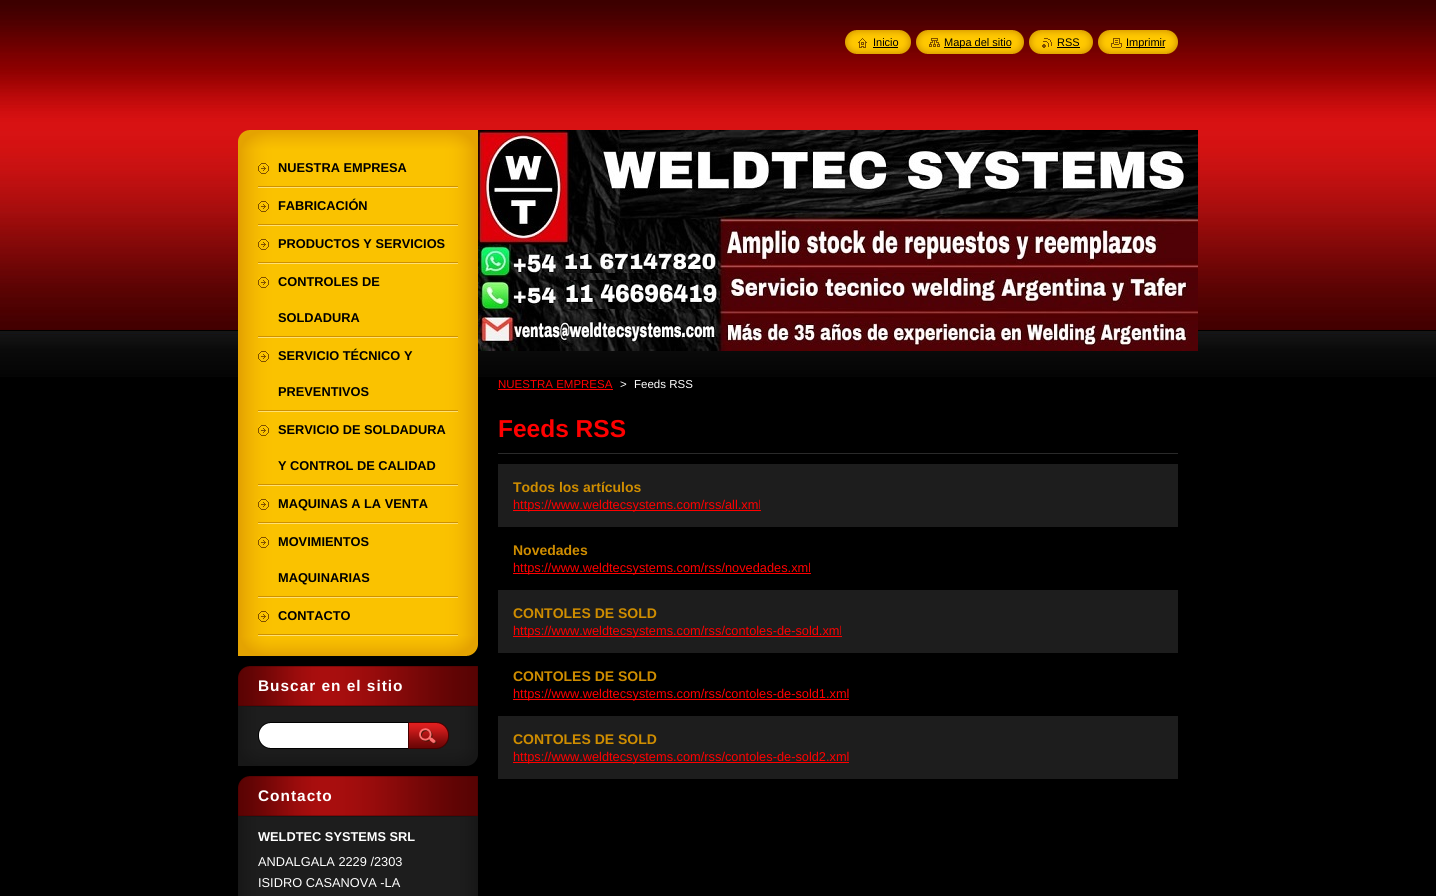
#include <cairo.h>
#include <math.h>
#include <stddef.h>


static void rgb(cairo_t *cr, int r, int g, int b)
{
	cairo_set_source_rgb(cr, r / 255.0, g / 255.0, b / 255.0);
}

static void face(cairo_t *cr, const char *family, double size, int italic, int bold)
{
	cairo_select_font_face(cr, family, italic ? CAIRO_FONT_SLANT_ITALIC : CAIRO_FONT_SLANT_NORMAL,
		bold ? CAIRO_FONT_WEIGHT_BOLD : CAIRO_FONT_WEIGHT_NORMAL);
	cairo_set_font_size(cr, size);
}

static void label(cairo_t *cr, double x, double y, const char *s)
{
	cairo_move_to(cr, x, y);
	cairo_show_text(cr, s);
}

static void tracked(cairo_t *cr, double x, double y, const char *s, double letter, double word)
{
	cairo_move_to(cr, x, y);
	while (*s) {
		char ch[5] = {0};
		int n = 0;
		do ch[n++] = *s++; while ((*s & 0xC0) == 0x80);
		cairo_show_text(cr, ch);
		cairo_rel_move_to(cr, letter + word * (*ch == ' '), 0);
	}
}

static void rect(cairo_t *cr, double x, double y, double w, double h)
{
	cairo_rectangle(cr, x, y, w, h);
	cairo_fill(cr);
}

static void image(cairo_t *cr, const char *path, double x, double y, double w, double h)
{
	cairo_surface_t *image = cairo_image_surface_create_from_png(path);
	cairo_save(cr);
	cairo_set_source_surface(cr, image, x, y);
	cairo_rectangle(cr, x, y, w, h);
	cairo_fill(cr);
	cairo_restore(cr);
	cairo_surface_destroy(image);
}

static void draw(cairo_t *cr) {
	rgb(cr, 0, 0, 0);
	cairo_paint(cr);
	image(cr, "image0.png", 0, 0, 1436, 377);
	image(cr, "image1.png", 845, 30, 13, 24);
	image(cr, "image2.png", 858, 30, 53, 24);
	image(cr, "image3.png", 858, 38, 9, 10);
	face(cr, "Liberation Sans", 11, 0, 0);
	rgb(cr, 0, 0, 0);
	label(cr, 873, 46, "Inicio");
	rect(cr, 873, 47, 25, 1);
	image(cr, "image1.png", 916, 30, 13, 24);
	image(cr, "image4.png", 929, 30, 95, 24);
	image(cr, "image5.png", 929, 38, 11, 9);
	rect(cr, 944, 47, 67, 1);
	label(cr, 944, 46, "Mapa del sitio");
	image(cr, "image1.png", 1029, 30, 13, 24);
	image(cr, "image6.png", 1042, 30, 51, 24);
	image(cr, "image7.png", 1042, 38, 10, 10);
	label(cr, 1057, 46, "RSS");
	rect(cr, 1057, 47, 23, 1);
	image(cr, "image1.png", 1098, 30, 13, 24);
	image(cr, "image8.png", 1111, 30, 67, 24);
	image(cr, "image9.png", 1111, 38, 11, 10);
	rect(cr, 1126, 47, 39, 1);
	label(cr, 1126, 46, "Imprimir");
	image(cr, "image10.png", 238, 130, 240, 20);
	image(cr, "image11.png", 238, 636, 240, 20);
	image(cr, "image12.png", 238, 150, 240, 486);
	image(cr, "image13.png", 258, 186, 200, 2);
	image(cr, "image14.png", 258, 163, 11, 11);
	face(cr, "Liberation Sans", 12.8, 0, 1);
	label(cr, 278, 172, "NUESTRA EMPRESA");
	image(cr, "image13.png", 258, 224, 200, 2);
	image(cr, "image14.png", 258, 201, 11, 11);
	label(cr, 278, 210, "FABRICACIÓN");
	image(cr, "image13.png", 258, 262, 200, 2);
	image(cr, "image14.png", 258, 239, 11, 11);
	label(cr, 278, 248, "PRODUCTOS Y SERVICIOS");
	image(cr, "image13.png", 258, 336, 200, 2);
	image(cr, "image14.png", 258, 277, 11, 11);
	label(cr, 278, 286, "CONTROLES DE");
	label(cr, 278, 322, "SOLDADURA");
	image(cr, "image13.png", 258, 410, 200, 2);
	image(cr, "image14.png", 258, 351, 11, 11);
	label(cr, 278, 360, "SERVICIO TÉCNICO Y");
	label(cr, 278, 396, "PREVENTIVOS");
	image(cr, "image13.png", 258, 484, 200, 2);
	image(cr, "image14.png", 258, 425, 11, 11);
	label(cr, 278, 434, "SERVICIO DE SOLDADURA");
	label(cr, 278, 470, "Y CONTROL DE CALIDAD");
	image(cr, "image13.png", 258, 522, 200, 2);
	image(cr, "image14.png", 258, 499, 11, 11);
	label(cr, 278, 508, "MAQUINAS A LA VENTA");
	image(cr, "image13.png", 258, 596, 200, 2);
	image(cr, "image14.png", 258, 537, 11, 11);
	label(cr, 278, 546, "MOVIMIENTOS");
	label(cr, 278, 582, "MAQUINARIAS");
	image(cr, "image13.png", 258, 634, 200, 2);
	image(cr, "image14.png", 258, 611, 11, 11);
	label(cr, 278, 620, "CONTACTO");
	image(cr, "image15.png", 238, 749, 240, 17);
	image(cr, "image16.png", 238, 666, 240, 40);
	face(cr, "Liberation Sans", 15.4, 0, 1);
	rgb(cr, 255, 255, 255);
	tracked(cr, 258, 691, "Buscar en el sitio", 1, 0);
	image(cr, "image17.png", 238, 707, 240, 42);
	rgb(cr, 23, 23, 23);
	rect(cr, 238, 706, 240, 1);
	image(cr, "image18.png", 258, 722, 150, 27);
	image(cr, "image19.png", 408, 722, 41, 27);
	image(cr, "image16.png", 238, 776, 240, 40);
	rgb(cr, 255, 255, 255);
	tracked(cr, 258, 801, "Contacto", 1, 0);
	image(cr, "image20.png", 238, 817, 240, 79);
	rgb(cr, 23, 23, 23);
	rect(cr, 238, 816, 240, 1);
	face(cr, "Liberation Sans", 12.8, 0, 1);
	rgb(cr, 255, 255, 255);
	label(cr, 258, 841, "WELDTEC SYSTEMS SRL");
	face(cr, "Liberation Sans", 12.8, 0, 0);
	label(cr, 258, 866, "ANDALGALA 2229 /2303");
	label(cr, 258, 887, "ISIDRO CASANOVA -LA");
	image(cr, "image21.png", 478, 130, 720, 221);
	face(cr, "Liberation Sans", 11.5, 0, 0);
	rgb(cr, 255, 0, 0);
	label(cr, 498, 388, "NUESTRA EMPRESA");
	rect(cr, 498, 389, 115, 1);
	rgb(cr, 255, 255, 255);
	label(cr, 620, 388, ">");
	label(cr, 634, 388, "Feeds RSS");
	rgb(cr, 42, 42, 42);
	rect(cr, 498, 453, 680, 1);
	face(cr, "Liberation Sans", 24.5, 0, 1);
	rgb(cr, 255, 0, 0);
	label(cr, 498, 437, "Feeds RSS");
	rgb(cr, 29, 29, 29);
	rect(cr, 498, 464, 680, 63);
	face(cr, "Liberation Sans", 14, 0, 1);
	rgb(cr, 207, 141, 0);
	label(cr, 513, 492, "Todos los artículos");
	rgb(cr, 255, 0, 0);
	rect(cr, 513, 510, 248, 1);
	face(cr, "Liberation Sans", 12.8, 0, 0);
	label(cr, 513, 509, "https://www.weldtecsystems.com/rss/all.xml");
	face(cr, "Liberation Sans", 14, 0, 1);
	rgb(cr, 207, 141, 0);
	label(cr, 513, 555, "Novedades");
	rgb(cr, 255, 0, 0);
	rect(cr, 513, 573, 298, 1);
	face(cr, "Liberation Sans", 12.8, 0, 0);
	label(cr, 513, 572, "https://www.weldtecsystems.com/rss/novedades.xml");
	rgb(cr, 29, 29, 29);
	rect(cr, 498, 590, 680, 63);
	face(cr, "Liberation Sans", 14, 0, 1);
	rgb(cr, 207, 141, 0);
	label(cr, 513, 618, "CONTOLES DE SOLD");
	rgb(cr, 255, 0, 0);
	rect(cr, 513, 636, 329, 1);
	face(cr, "Liberation Sans", 12.8, 0, 0);
	label(cr, 513, 635, "https://www.weldtecsystems.com/rss/contoles-de-sold.xml");
	face(cr, "Liberation Sans", 14, 0, 1);
	rgb(cr, 207, 141, 0);
	label(cr, 513, 681, "CONTOLES DE SOLD");
	rgb(cr, 255, 0, 0);
	rect(cr, 513, 699, 336, 1);
	face(cr, "Liberation Sans", 12.8, 0, 0);
	label(cr, 513, 698, "https://www.weldtecsystems.com/rss/contoles-de-sold1.xml");
	rgb(cr, 29, 29, 29);
	rect(cr, 498, 716, 680, 63);
	face(cr, "Liberation Sans", 14, 0, 1);
	rgb(cr, 207, 141, 0);
	label(cr, 513, 744, "CONTOLES DE SOLD");
	rgb(cr, 255, 0, 0);
	rect(cr, 513, 762, 336, 1);
	face(cr, "Liberation Sans", 12.8, 0, 0);
	label(cr, 513, 761, "https://www.weldtecsystems.com/rss/contoles-de-sold2.xml");
}

int main(void) {
	cairo_surface_t *surface = cairo_image_surface_create(CAIRO_FORMAT_RGB24, 1436, 896);
	cairo_t *cr = cairo_create(surface);
	cairo_font_options_t *options = cairo_font_options_create();
	cairo_font_options_set_hint_metrics(options, CAIRO_HINT_METRICS_OFF);
	cairo_font_options_set_hint_style(options, CAIRO_HINT_STYLE_NONE);
	cairo_set_font_options(cr, options);
	cairo_set_miter_limit(cr, 4);
	draw(cr);
	cairo_surface_write_to_png(surface, "render.png");
	cairo_font_options_destroy(options);
	cairo_destroy(cr);
	cairo_surface_destroy(surface);
	return 0;
}
